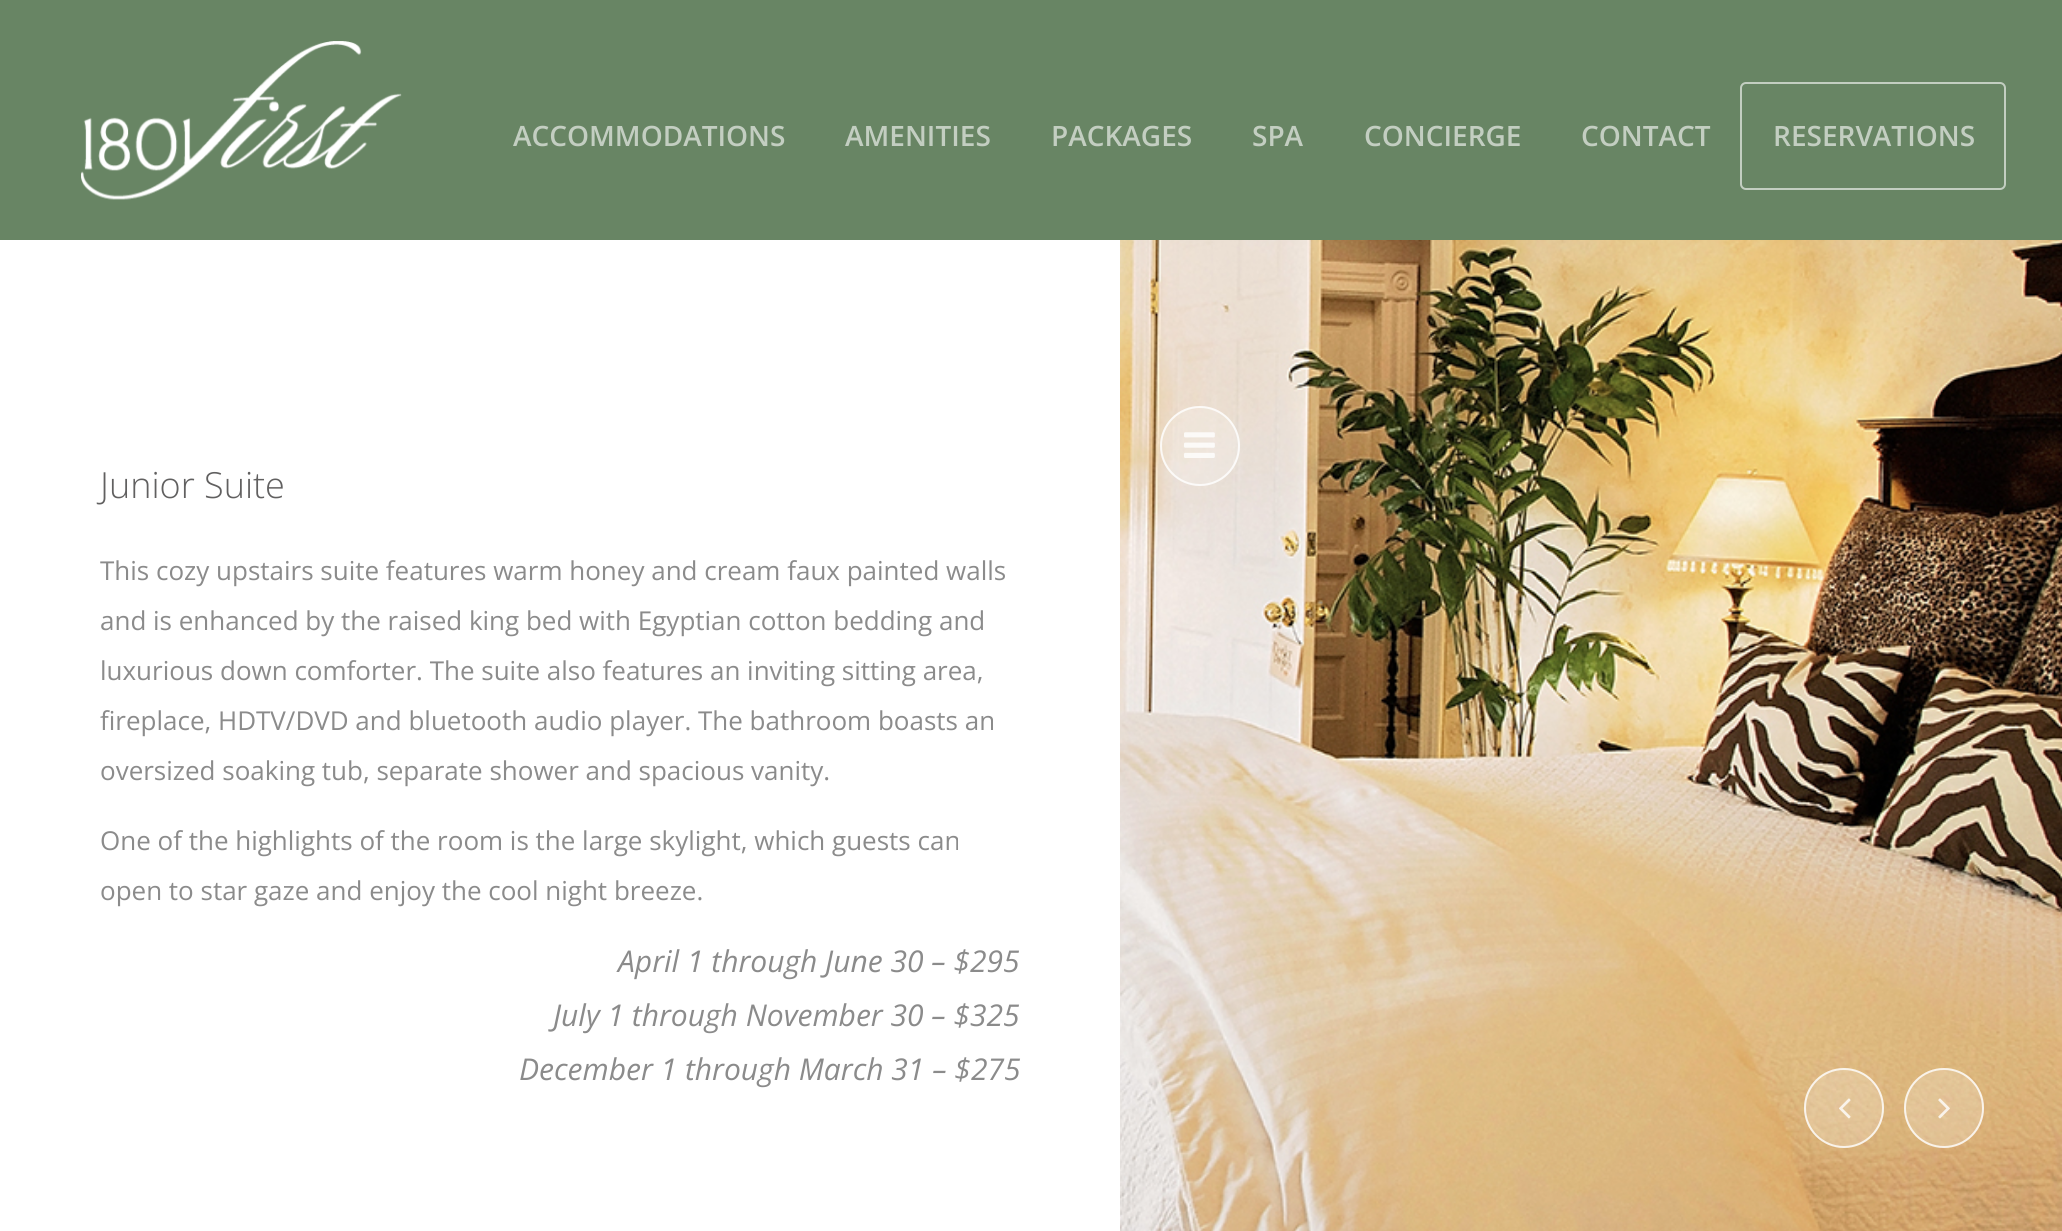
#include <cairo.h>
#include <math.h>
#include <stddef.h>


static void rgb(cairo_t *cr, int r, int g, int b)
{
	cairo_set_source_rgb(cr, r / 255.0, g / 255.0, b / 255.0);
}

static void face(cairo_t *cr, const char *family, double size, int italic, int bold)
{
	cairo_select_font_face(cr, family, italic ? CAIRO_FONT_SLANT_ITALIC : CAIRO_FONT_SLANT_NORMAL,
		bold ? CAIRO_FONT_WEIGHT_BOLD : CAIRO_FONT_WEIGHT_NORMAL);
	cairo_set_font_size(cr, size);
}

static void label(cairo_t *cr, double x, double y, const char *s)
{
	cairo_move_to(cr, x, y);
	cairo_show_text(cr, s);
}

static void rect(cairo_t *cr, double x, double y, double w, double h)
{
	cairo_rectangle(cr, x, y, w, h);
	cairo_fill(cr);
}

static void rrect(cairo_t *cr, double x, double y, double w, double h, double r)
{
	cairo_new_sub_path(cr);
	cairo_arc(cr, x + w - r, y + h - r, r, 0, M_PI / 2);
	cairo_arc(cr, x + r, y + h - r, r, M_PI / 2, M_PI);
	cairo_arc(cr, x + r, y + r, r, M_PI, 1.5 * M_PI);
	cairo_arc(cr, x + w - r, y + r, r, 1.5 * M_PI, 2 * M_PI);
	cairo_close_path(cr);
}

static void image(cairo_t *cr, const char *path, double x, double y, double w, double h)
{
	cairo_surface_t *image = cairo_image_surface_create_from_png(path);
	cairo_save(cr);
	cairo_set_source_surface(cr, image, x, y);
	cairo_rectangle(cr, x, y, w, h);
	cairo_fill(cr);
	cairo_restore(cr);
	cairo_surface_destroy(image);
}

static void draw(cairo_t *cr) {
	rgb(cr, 255, 255, 255);
	cairo_paint(cr);
	rgb(cr, 104, 133, 100);
	rect(cr, 0, 0, 2062, 240);
	image(cr, "image0.png", 81, 41, 321, 159);
	face(cr, "Open Sans SemiBold", 28, 0, 0);
	rgb(cr, 195, 206, 193);
	label(cr, 513, 146, "ACCOMMODATIONS");
	label(cr, 845, 146, "AMENITIES");
	label(cr, 1051, 146, "PACKAGES");
	label(cr, 1252, 146, "SPA");
	label(cr, 1364, 146, "CONCIERGE");
	label(cr, 1581, 146, "CONTACT");
	rrect(cr, 1741, 83, 264, 106, 5);
	cairo_stroke(cr);
	label(cr, 1773, 146, "RESERVATIONS");
	image(cr, "image2.png", 1120, 240, 942, 991);
	cairo_set_source_rgba(cr, 1, 1, 1, 0.2);
	cairo_arc(cr, 1200, 446, 40, 0, 2 * M_PI);
	cairo_fill(cr);
	cairo_arc(cr, 1200, 446, 39, 0, 2 * M_PI);
	cairo_set_source_rgba(cr, 1, 1, 1, 0.8);
	cairo_stroke(cr);
	image(cr, "image1.png", 1184, 432, 31, 26);
	face(cr, "Open Sans Light", 36, 0, 0);
	rgb(cr, 97, 96, 96);
	label(cr, 100, 498, "Junior Suite");
	face(cr, "Open Sans", 26, 0, 0);
	rgb(cr, 139, 139, 139);
	label(cr, 100, 580, "This cozy upstairs suite features warm honey and cream faux painted walls");
	label(cr, 100, 630, "and is enhanced by the raised king bed with Egyptian cotton bedding and");
	label(cr, 100, 680, "luxurious down comforter. The suite also features an inviting sitting area,");
	label(cr, 100, 730, "fireplace, HDTV/DVD and bluetooth audio player. The bathroom boasts an");
	label(cr, 100, 780, "oversized soaking tub, separate shower and spacious vanity.");
	label(cr, 100, 850, "One of the highlights of the room is the large skylight, which guests can");
	label(cr, 100, 900, "open to star gaze and enjoy the cool night breeze.");
	face(cr, "Open Sans", 30, 1, 0);
	label(cr, 618, 972, "April 1 through June 30 – $295");
	label(cr, 553, 1026, "July 1 through November 30 – $325");
	label(cr, 519, 1080, "December 1 through March 31 – $275");
	cairo_set_source_rgba(cr, 1, 1, 1, 0.2);
	cairo_new_path(cr);
	cairo_arc(cr, 1844, 1108, 40, 0, 2 * M_PI);
	cairo_fill(cr);
	cairo_arc(cr, 1844, 1108, 39, 0, 2 * M_PI);
	cairo_set_source_rgba(cr, 1, 1, 1, 0.8);
	cairo_stroke(cr);
	image(cr, "image3.png", 1839, 1098, 12, 21);
	cairo_set_source_rgba(cr, 1, 1, 1, 0.2);
	cairo_arc(cr, 1944, 1108, 40, 0, 2 * M_PI);
	cairo_fill(cr);
	cairo_arc(cr, 1944, 1108, 39, 0, 2 * M_PI);
	cairo_set_source_rgba(cr, 1, 1, 1, 0.8);
	cairo_stroke(cr);
	image(cr, "image4.png", 1938, 1098, 12, 21);
}

int main(void) {
	cairo_surface_t *surface = cairo_image_surface_create(CAIRO_FORMAT_RGB24, 2062, 1231);
	cairo_t *cr = cairo_create(surface);
	cairo_font_options_t *options = cairo_font_options_create();
	cairo_font_options_set_hint_metrics(options, CAIRO_HINT_METRICS_OFF);
	cairo_font_options_set_hint_style(options, CAIRO_HINT_STYLE_NONE);
	cairo_set_font_options(cr, options);
	cairo_set_miter_limit(cr, 4);
	draw(cr);
	cairo_surface_write_to_png(surface, "render.png");
	cairo_font_options_destroy(options);
	cairo_destroy(cr);
	cairo_surface_destroy(surface);
	return 0;
}
